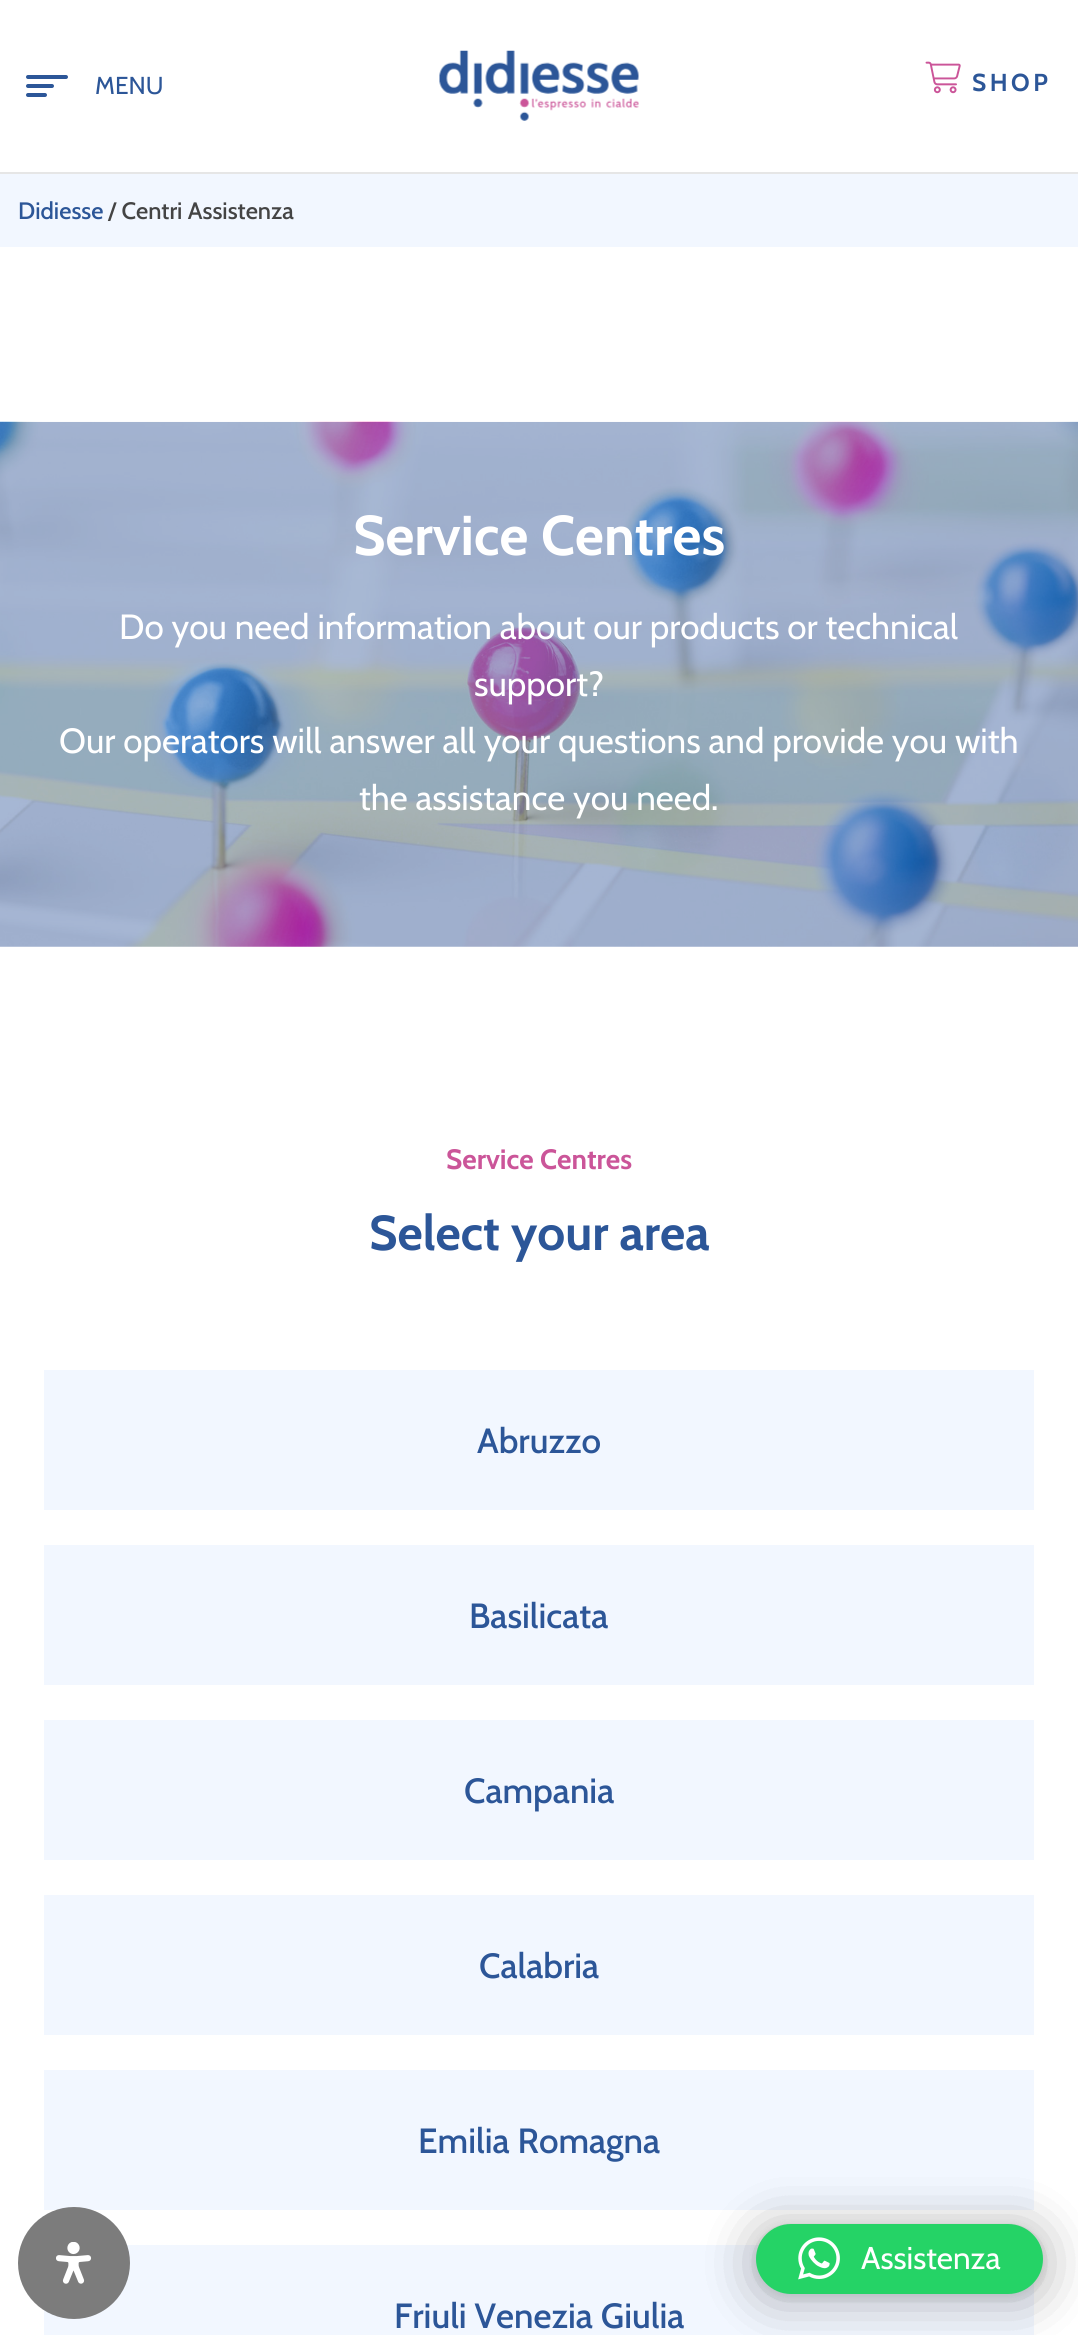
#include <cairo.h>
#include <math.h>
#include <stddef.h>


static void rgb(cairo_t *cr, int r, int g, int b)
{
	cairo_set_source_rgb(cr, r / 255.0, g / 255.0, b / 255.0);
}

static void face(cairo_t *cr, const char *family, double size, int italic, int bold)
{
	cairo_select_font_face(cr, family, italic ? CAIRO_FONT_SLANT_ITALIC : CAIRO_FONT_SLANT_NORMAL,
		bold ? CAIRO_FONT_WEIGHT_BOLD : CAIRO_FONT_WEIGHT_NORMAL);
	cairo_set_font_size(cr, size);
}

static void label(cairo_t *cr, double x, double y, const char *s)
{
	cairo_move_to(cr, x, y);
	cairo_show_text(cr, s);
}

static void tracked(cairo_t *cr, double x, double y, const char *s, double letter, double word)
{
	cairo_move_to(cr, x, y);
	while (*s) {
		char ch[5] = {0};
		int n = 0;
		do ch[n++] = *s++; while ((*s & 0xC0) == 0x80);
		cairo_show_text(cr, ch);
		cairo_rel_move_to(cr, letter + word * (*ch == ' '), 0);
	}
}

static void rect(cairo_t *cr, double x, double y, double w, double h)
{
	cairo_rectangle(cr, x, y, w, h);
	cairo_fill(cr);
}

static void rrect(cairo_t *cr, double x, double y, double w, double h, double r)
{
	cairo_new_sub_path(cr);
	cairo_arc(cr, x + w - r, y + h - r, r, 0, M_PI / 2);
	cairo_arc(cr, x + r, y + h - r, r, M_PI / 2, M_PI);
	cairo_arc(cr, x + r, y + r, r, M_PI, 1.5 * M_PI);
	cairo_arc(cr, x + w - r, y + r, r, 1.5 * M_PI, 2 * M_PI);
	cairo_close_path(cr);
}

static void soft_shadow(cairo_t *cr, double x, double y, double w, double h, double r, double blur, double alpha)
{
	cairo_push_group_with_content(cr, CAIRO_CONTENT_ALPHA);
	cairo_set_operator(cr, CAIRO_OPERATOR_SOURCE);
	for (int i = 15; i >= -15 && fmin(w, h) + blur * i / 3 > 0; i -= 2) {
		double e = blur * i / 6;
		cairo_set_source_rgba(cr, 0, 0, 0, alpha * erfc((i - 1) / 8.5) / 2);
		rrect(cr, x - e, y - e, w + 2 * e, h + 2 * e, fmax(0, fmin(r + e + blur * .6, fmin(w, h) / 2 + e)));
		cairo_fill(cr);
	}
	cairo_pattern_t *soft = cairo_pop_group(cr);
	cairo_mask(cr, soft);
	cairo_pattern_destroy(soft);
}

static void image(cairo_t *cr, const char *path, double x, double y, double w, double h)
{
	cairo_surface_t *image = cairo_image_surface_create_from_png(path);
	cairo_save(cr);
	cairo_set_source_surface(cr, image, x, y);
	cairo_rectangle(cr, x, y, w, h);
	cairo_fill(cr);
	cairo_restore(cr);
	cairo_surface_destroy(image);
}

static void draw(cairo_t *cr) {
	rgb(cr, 255, 255, 255);
	cairo_paint(cr);
	rgb(cr, 230, 230, 230);
	rect(cr, 0, 172, 1078, 2);
	rgb(cr, 44, 86, 152);
	rrect(cr, 26, 75, 42, 4, 2);
	cairo_fill(cr);
	rrect(cr, 26, 84, 28, 4, 2);
	cairo_fill(cr);
	rrect(cr, 26, 93, 21, 4, 2);
	cairo_fill(cr);
	face(cr, "Cabin", 24.5, 0, 0);
	label(cr, 95, 94, "MENU");
	image(cr, "image0.png", 439, 50, 200, 71);
	image(cr, "image1.png", 925, 61, 36, 33);
	face(cr, "Cabin", 24.5, 0, 1);
	tracked(cr, 972, 91, "SHOP", 3.5, 0);
	rgb(cr, 242, 247, 255);
	rect(cr, 0, 174, 1078, 73);
	face(cr, "Cabin Medium", 23.75, 0, 0);
	rgb(cr, 44, 86, 152);
	label(cr, 18, 219, "Didiesse");
	rgb(cr, 68, 68, 68);
	label(cr, 108, 219, "/ Centri Assistenza");
	image(cr, "image2.png", 0, 421, 1078, 526);
	face(cr, "Cabin", 56, 0, 1);
	rgb(cr, 255, 255, 255);
	label(cr, 353, 555, "Service Centres");
	face(cr, "Cabin", 35, 0, 0);
	label(cr, 119, 639, "Do you need information about our products or technical");
	label(cr, 474, 696, "support?");
	label(cr, 59, 753, "Our operators will answer all your questions and provide you with");
	label(cr, 359, 810, "the assistance you need.");
	face(cr, "Cabin", 28, 0, 1);
	rgb(cr, 203, 85, 153);
	label(cr, 446, 1169, "Service Centres");
	face(cr, "Cabin", 49, 0, 1);
	rgb(cr, 44, 86, 152);
	label(cr, 369, 1250, "Select your area");
	rgb(cr, 242, 247, 255);
	rect(cr, 44, 1370, 990, 140);
	face(cr, "Cabin Medium", 35, 0, 0);
	rgb(cr, 44, 86, 152);
	label(cr, 477, 1453, "Abruzzo");
	rgb(cr, 242, 247, 255);
	rect(cr, 44, 1545, 990, 140);
	rgb(cr, 44, 86, 152);
	label(cr, 469, 1628, "Basilicata");
	rgb(cr, 242, 247, 255);
	rect(cr, 44, 1720, 990, 140);
	rgb(cr, 44, 86, 152);
	label(cr, 464, 1803, "Campania");
	rgb(cr, 242, 247, 255);
	rect(cr, 44, 1895, 990, 140);
	rgb(cr, 44, 86, 152);
	label(cr, 479, 1978, "Calabria");
	rgb(cr, 242, 247, 255);
	rect(cr, 44, 2070, 990, 140);
	rgb(cr, 44, 86, 152);
	label(cr, 418, 2153, "Emilia Romagna");
	rgb(cr, 242, 247, 255);
	rect(cr, 44, 2245, 990, 90);
	rgb(cr, 44, 86, 152);
	label(cr, 394, 2328, "Friuli Venezia Giulia");
	rgb(cr, 124, 124, 124);
	cairo_new_path(cr);
	cairo_arc(cr, 74, 2263, 56, 0, 2 * M_PI);
	cairo_fill(cr);
	image(cr, "image3.png", 56, 2242, 36, 42);
	rgb(cr, 0, 0, 0);
	soft_shadow(cr, 756, 2228, 287, 70, 35, 28, 0.16);
	soft_shadow(cr, 756, 2226, 287, 70, 35, 5, 0.06);
	soft_shadow(cr, 756, 2228, 287, 70, 35, 28, 0.16);
	soft_shadow(cr, 756, 2226, 287, 70, 35, 5, 0.06);
	rgb(cr, 37, 211, 102);
	rrect(cr, 756, 2224, 287, 70, 35);
	cairo_fill(cr);
	image(cr, "image4.png", 798, 2237, 42, 43);
	face(cr, "Cabin", 31.5, 0, 0);
	rgb(cr, 255, 255, 255);
	label(cr, 861, 2269, "Assistenza");
}

int main(void) {
	cairo_surface_t *surface = cairo_image_surface_create(CAIRO_FORMAT_RGB24, 1078, 2335);
	cairo_t *cr = cairo_create(surface);
	cairo_font_options_t *options = cairo_font_options_create();
	cairo_font_options_set_hint_metrics(options, CAIRO_HINT_METRICS_OFF);
	cairo_font_options_set_hint_style(options, CAIRO_HINT_STYLE_NONE);
	cairo_set_font_options(cr, options);
	cairo_set_miter_limit(cr, 4);
	draw(cr);
	cairo_surface_write_to_png(surface, "render.png");
	cairo_font_options_destroy(options);
	cairo_destroy(cr);
	cairo_surface_destroy(surface);
	return 0;
}
